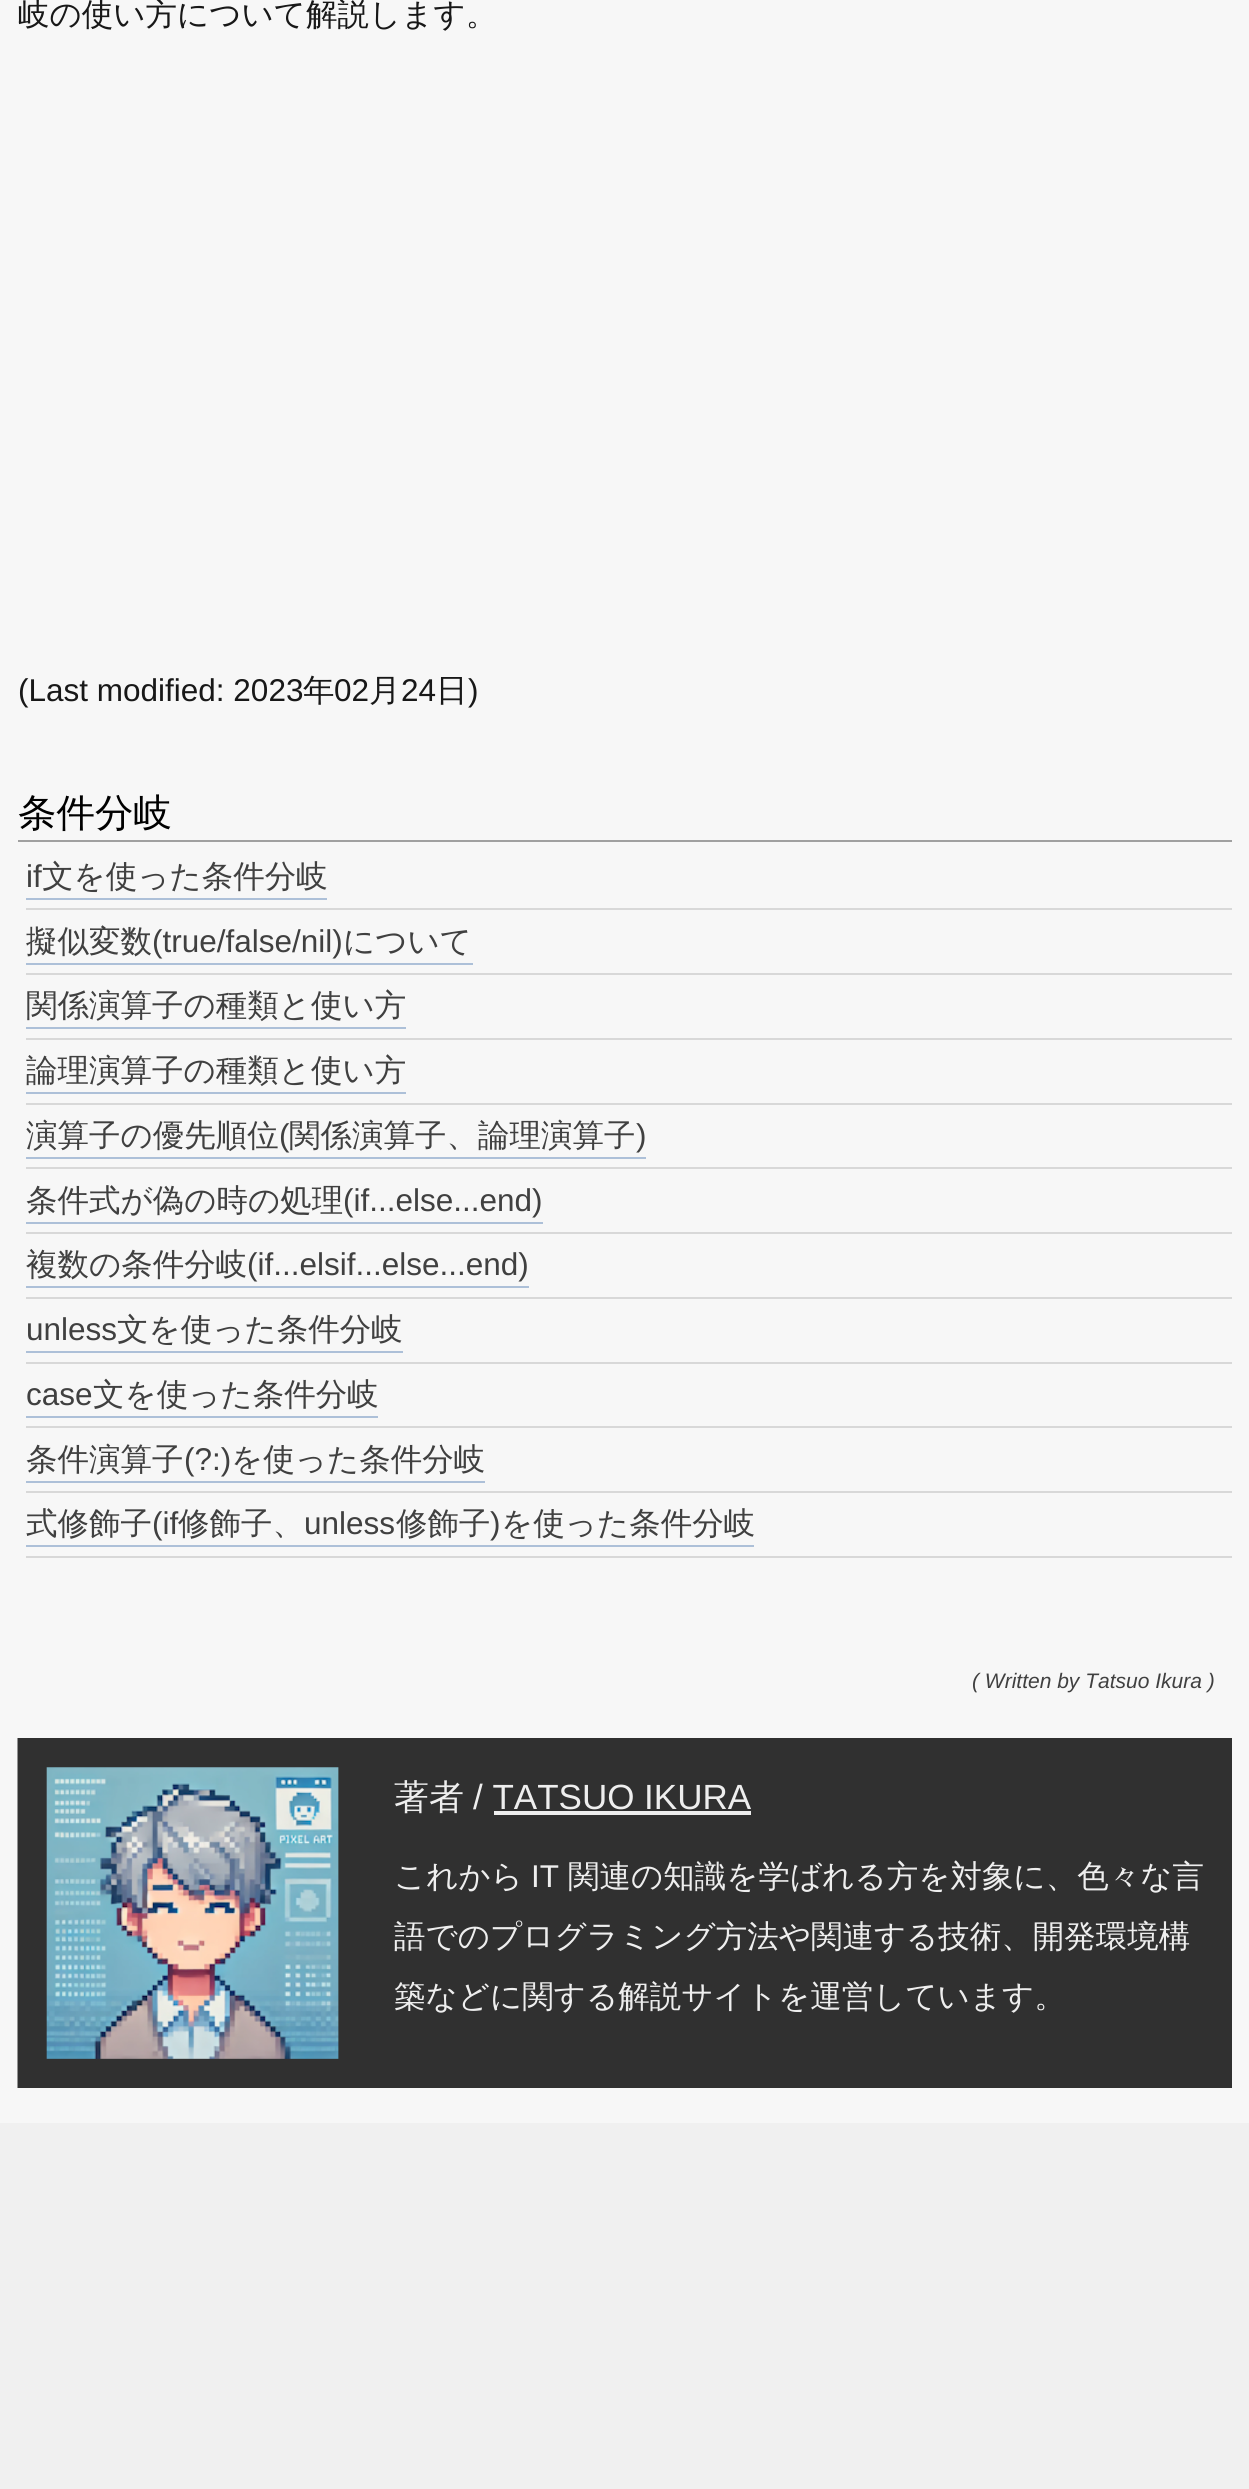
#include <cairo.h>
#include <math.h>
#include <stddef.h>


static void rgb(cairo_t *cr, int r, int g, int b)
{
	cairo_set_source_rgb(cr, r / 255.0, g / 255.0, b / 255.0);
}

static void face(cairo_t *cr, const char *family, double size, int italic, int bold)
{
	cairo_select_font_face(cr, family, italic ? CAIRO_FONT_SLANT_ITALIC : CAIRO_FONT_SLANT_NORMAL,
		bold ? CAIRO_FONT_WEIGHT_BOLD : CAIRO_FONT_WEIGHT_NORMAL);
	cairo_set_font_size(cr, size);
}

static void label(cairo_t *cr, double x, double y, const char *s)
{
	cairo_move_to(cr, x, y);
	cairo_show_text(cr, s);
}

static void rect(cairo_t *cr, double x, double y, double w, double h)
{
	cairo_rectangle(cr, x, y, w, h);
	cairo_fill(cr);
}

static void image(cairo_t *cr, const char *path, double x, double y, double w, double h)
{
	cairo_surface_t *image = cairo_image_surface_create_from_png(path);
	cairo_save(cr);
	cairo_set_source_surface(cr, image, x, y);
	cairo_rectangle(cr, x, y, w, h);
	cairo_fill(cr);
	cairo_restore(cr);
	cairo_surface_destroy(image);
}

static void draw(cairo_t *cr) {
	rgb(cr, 247, 247, 247);
	cairo_paint(cr);
	face(cr, "WenQuanYi Zen Hei Medium", 31.5, 0, 0);
	rgb(cr, 24, 24, 24);
	label(cr, 18, 25, "岐の使い方について解説します。");
	face(cr, "Liberation Sans", 31.5, 0, 0);
	label(cr, 18, 701, "(Last modified: 2023");
	face(cr, "WenQuanYi Zen Hei Medium", 31.5, 0, 0);
	label(cr, 303, 701, "年");
	face(cr, "Liberation Sans", 31.5, 0, 0);
	label(cr, 334, 701, "02");
	face(cr, "WenQuanYi Zen Hei Medium", 31.5, 0, 0);
	label(cr, 369, 701, "月");
	face(cr, "Liberation Sans", 31.5, 0, 0);
	label(cr, 401, 701, "24");
	face(cr, "WenQuanYi Zen Hei Medium", 31.5, 0, 0);
	label(cr, 436, 701, "日");
	face(cr, "Liberation Sans", 31.5, 0, 0);
	label(cr, 468, 701, ")");
	rgb(cr, 160, 160, 160);
	rect(cr, 18, 840, 1214, 2);
	face(cr, "WenQuanYi Zen Hei Medium", 38.5, 0, 0);
	rgb(cr, 0, 0, 0);
	label(cr, 18, 826, "条件分岐");
	rgb(cr, 216, 216, 216);
	rect(cr, 26, 908, 1206, 2);
	face(cr, "Liberation Sans", 31.5, 0, 0);
	rgb(cr, 64, 64, 64);
	label(cr, 26, 887, "if");
	face(cr, "WenQuanYi Zen Hei Medium", 31.5, 0, 0);
	label(cr, 42, 887, "文を使った条件分岐");
	rgb(cr, 173, 192, 216);
	rect(cr, 26, 898, 301, 2);
	rgb(cr, 216, 216, 216);
	rect(cr, 26, 973, 1206, 2);
	rgb(cr, 64, 64, 64);
	label(cr, 26, 952, "擬似変数");
	face(cr, "Liberation Sans", 31.5, 0, 0);
	label(cr, 152, 952, "(true/false/nil)");
	rgb(cr, 173, 192, 216);
	rect(cr, 26, 963, 447, 2);
	face(cr, "WenQuanYi Zen Hei Medium", 31.5, 0, 0);
	rgb(cr, 64, 64, 64);
	label(cr, 343, 952, "について");
	rgb(cr, 216, 216, 216);
	rect(cr, 26, 1038, 1206, 2);
	rgb(cr, 64, 64, 64);
	label(cr, 26, 1016, "関係演算子の種類と使い方");
	rgb(cr, 173, 192, 216);
	rect(cr, 26, 1027, 380, 2);
	rgb(cr, 216, 216, 216);
	rect(cr, 26, 1103, 1206, 2);
	rgb(cr, 64, 64, 64);
	label(cr, 26, 1081, "論理演算子の種類と使い方");
	rgb(cr, 173, 192, 216);
	rect(cr, 26, 1092, 380, 2);
	rgb(cr, 216, 216, 216);
	rect(cr, 26, 1167, 1206, 2);
	rgb(cr, 64, 64, 64);
	label(cr, 26, 1146, "演算子の優先順位");
	face(cr, "Liberation Sans", 31.5, 0, 0);
	label(cr, 279, 1146, "(");
	rgb(cr, 173, 192, 216);
	rect(cr, 26, 1157, 620, 2);
	face(cr, "WenQuanYi Zen Hei Medium", 31.5, 0, 0);
	rgb(cr, 64, 64, 64);
	label(cr, 289, 1146, "関係演算子、論理演算子");
	face(cr, "Liberation Sans", 31.5, 0, 0);
	label(cr, 636, 1146, ")");
	rgb(cr, 216, 216, 216);
	rect(cr, 26, 1232, 1206, 2);
	face(cr, "WenQuanYi Zen Hei Medium", 31.5, 0, 0);
	rgb(cr, 64, 64, 64);
	label(cr, 26, 1211, "条件式が偽の時の処理");
	face(cr, "Liberation Sans", 31.5, 0, 0);
	label(cr, 343, 1211, "(if...else...end)");
	rgb(cr, 173, 192, 216);
	rect(cr, 26, 1222, 517, 2);
	rgb(cr, 216, 216, 216);
	rect(cr, 26, 1297, 1206, 2);
	face(cr, "WenQuanYi Zen Hei Medium", 31.5, 0, 0);
	rgb(cr, 64, 64, 64);
	label(cr, 26, 1275, "複数の条件分岐");
	face(cr, "Liberation Sans", 31.5, 0, 0);
	label(cr, 247, 1275, "(if...elsif...else...end)");
	rgb(cr, 173, 192, 216);
	rect(cr, 26, 1286, 503, 2);
	rgb(cr, 216, 216, 216);
	rect(cr, 26, 1362, 1206, 2);
	rgb(cr, 64, 64, 64);
	label(cr, 26, 1340, "unless");
	face(cr, "WenQuanYi Zen Hei Medium", 31.5, 0, 0);
	label(cr, 117, 1340, "文を使った条件分岐");
	rgb(cr, 173, 192, 216);
	rect(cr, 26, 1351, 377, 2);
	rgb(cr, 216, 216, 216);
	rect(cr, 26, 1426, 1206, 2);
	face(cr, "Liberation Sans", 31.5, 0, 0);
	rgb(cr, 64, 64, 64);
	label(cr, 26, 1405, "case");
	rgb(cr, 173, 192, 216);
	rect(cr, 26, 1416, 352, 2);
	face(cr, "WenQuanYi Zen Hei Medium", 31.5, 0, 0);
	rgb(cr, 64, 64, 64);
	label(cr, 93, 1405, "文を使った条件分岐");
	rgb(cr, 216, 216, 216);
	rect(cr, 26, 1491, 1206, 2);
	rgb(cr, 64, 64, 64);
	label(cr, 26, 1470, "条件演算子");
	face(cr, "Liberation Sans", 31.5, 0, 0);
	label(cr, 184, 1470, "(?:)");
	rgb(cr, 173, 192, 216);
	rect(cr, 26, 1481, 459, 2);
	face(cr, "WenQuanYi Zen Hei Medium", 31.5, 0, 0);
	rgb(cr, 64, 64, 64);
	label(cr, 231, 1470, "を使った条件分岐");
	rgb(cr, 216, 216, 216);
	rect(cr, 26, 1556, 1206, 2);
	rgb(cr, 64, 64, 64);
	label(cr, 26, 1534, "式修飾子");
	face(cr, "Liberation Sans", 31.5, 0, 0);
	label(cr, 152, 1534, "(if");
	rgb(cr, 173, 192, 216);
	rect(cr, 26, 1545, 728, 2);
	face(cr, "WenQuanYi Zen Hei Medium", 31.5, 0, 0);
	rgb(cr, 64, 64, 64);
	label(cr, 178, 1534, "修飾子、");
	face(cr, "Liberation Sans", 31.5, 0, 0);
	label(cr, 304, 1534, "unless");
	face(cr, "WenQuanYi Zen Hei Medium", 31.5, 0, 0);
	label(cr, 396, 1534, "修飾子");
	face(cr, "Liberation Sans", 31.5, 0, 0);
	label(cr, 490, 1534, ")");
	face(cr, "WenQuanYi Zen Hei Medium", 31.5, 0, 0);
	label(cr, 501, 1534, "を使った条件分岐");
	face(cr, "Liberation Sans", 21, 1, 0);
	label(cr, 972, 1688, "( Written by Tatsuo Ikura )");
	rgb(cr, 48, 48, 48);
	rect(cr, 339, 1738, 893, 350);
	image(cr, "image0.png", 17, 1738, 322, 350);
	face(cr, "WenQuanYi Zen Hei Medium", 35, 0, 0);
	rgb(cr, 238, 238, 238);
	label(cr, 394, 1809, "著者");
	face(cr, "Liberation Sans", 35, 0, 0);
	label(cr, 473, 1809, "/ TATSUO IKURA");
	rect(cr, 494, 1811, 257, 4);
	face(cr, "WenQuanYi Zen Hei Medium", 31.5, 0, 0);
	label(cr, 394, 1887, "これから");
	face(cr, "Liberation Sans", 31.5, 0, 0);
	label(cr, 531, 1887, "IT");
	face(cr, "WenQuanYi Zen Hei Medium", 31.5, 0, 0);
	label(cr, 568, 1887, "関連の知識を学ばれる方を対象に、色々な言");
	label(cr, 394, 1947, "語でのプログラミング方法や関連する技術、開発環境構");
	label(cr, 394, 2007, "築などに関する解説サイトを運営しています。");
	rgb(cr, 240, 240, 240);
	rect(cr, 0, 2123, 1249, 366);
}

int main(void) {
	cairo_surface_t *surface = cairo_image_surface_create(CAIRO_FORMAT_RGB24, 1249, 2489);
	cairo_t *cr = cairo_create(surface);
	cairo_font_options_t *options = cairo_font_options_create();
	cairo_font_options_set_hint_metrics(options, CAIRO_HINT_METRICS_OFF);
	cairo_font_options_set_hint_style(options, CAIRO_HINT_STYLE_NONE);
	cairo_set_font_options(cr, options);
	cairo_set_miter_limit(cr, 4);
	draw(cr);
	cairo_surface_write_to_png(surface, "render.png");
	cairo_font_options_destroy(options);
	cairo_destroy(cr);
	cairo_surface_destroy(surface);
	return 0;
}
